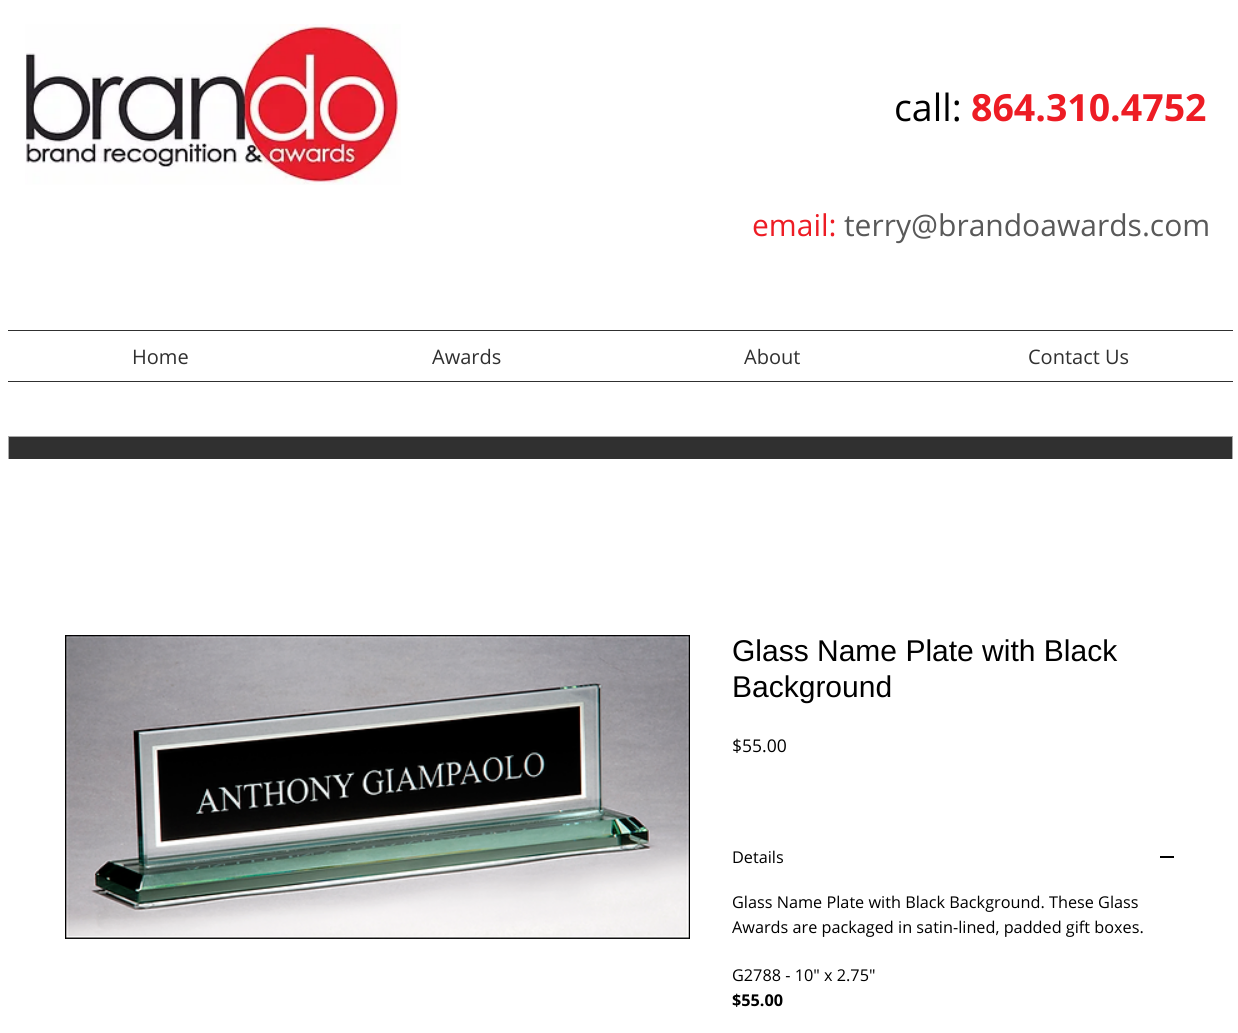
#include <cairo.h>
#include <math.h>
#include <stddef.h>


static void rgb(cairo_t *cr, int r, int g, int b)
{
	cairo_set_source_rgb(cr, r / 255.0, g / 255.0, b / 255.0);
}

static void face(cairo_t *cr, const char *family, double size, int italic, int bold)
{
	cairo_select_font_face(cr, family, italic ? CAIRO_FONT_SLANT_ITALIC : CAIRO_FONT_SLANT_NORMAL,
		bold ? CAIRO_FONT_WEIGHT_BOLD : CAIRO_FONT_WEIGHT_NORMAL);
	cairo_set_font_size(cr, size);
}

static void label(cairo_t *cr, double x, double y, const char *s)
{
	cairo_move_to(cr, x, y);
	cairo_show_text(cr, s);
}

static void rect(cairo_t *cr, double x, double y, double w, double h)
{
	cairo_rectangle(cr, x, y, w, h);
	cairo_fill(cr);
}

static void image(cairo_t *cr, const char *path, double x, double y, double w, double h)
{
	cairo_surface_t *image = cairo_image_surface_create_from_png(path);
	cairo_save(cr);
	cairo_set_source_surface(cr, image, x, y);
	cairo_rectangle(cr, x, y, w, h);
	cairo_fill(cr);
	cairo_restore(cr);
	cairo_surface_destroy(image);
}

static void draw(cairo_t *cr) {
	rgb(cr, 255, 255, 255);
	cairo_paint(cr);
	image(cr, "image0.png", 25, 24, 376, 161);
	face(cr, "Open Sans", 37.5, 0, 0);
	rgb(cr, 0, 0, 0);
	label(cr, 894, 121, "call:");
	face(cr, "Open Sans", 37.5, 0, 1);
	rgb(cr, 237, 28, 36);
	label(cr, 971, 121, "864.310.4752");
	face(cr, "Open Sans", 30, 0, 0);
	label(cr, 752, 236, "email:");
	rgb(cr, 89, 89, 89);
	label(cr, 844, 236, "terry@brandoawards.com");
	rgb(cr, 48, 48, 48);
	rect(cr, 8, 330, 1225, 1);
	rect(cr, 8, 381, 1225, 1);
	face(cr, "Open Sans", 20, 0, 0);
	label(cr, 132, 364, "Home");
	label(cr, 432, 364, "Awards");
	label(cr, 744, 364, "About");
	label(cr, 1028, 364, "Contact Us");
	rect(cr, 9, 437, 1223, 22);
	cairo_rectangle(cr, 8.5, 436.5, 1224, 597);
	rgb(cr, 168, 168, 168);
	cairo_set_line_width(cr, 1);
	cairo_stroke(cr);
	rgb(cr, 255, 255, 255);
	rect(cr, 8, 459, 1225, 574);
	image(cr, "image1.png", 65, 635, 625, 304);
	face(cr, "Liberation Sans", 30, 0, 0);
	rgb(cr, 0, 0, 0);
	label(cr, 732, 661, "Glass Name Plate with Black");
	label(cr, 732, 697, "Background");
	face(cr, "Open Sans", 17.5, 0, 0);
	label(cr, 732, 752, "$55.00");
	face(cr, "Open Sans", 16.25, 0, 0);
	label(cr, 732, 863, "Details");
	rect(cr, 1160, 856, 14, 2);
	label(cr, 732, 908, "Glass Name Plate with Black Background. These Glass");
	label(cr, 732, 933, "Awards are packaged in satin-lined, padded gift boxes.");
	label(cr, 732, 981, "G2788 - 10\" x 2.75\"");
	face(cr, "Open Sans", 16.25, 0, 1);
	label(cr, 732, 1006, "$55.00");
}

int main(void) {
	cairo_surface_t *surface = cairo_image_surface_create(CAIRO_FORMAT_RGB24, 1238, 1033);
	cairo_t *cr = cairo_create(surface);
	cairo_font_options_t *options = cairo_font_options_create();
	cairo_font_options_set_hint_metrics(options, CAIRO_HINT_METRICS_OFF);
	cairo_font_options_set_hint_style(options, CAIRO_HINT_STYLE_NONE);
	cairo_set_font_options(cr, options);
	cairo_set_miter_limit(cr, 4);
	draw(cr);
	cairo_surface_write_to_png(surface, "render.png");
	cairo_font_options_destroy(options);
	cairo_destroy(cr);
	cairo_surface_destroy(surface);
	return 0;
}
